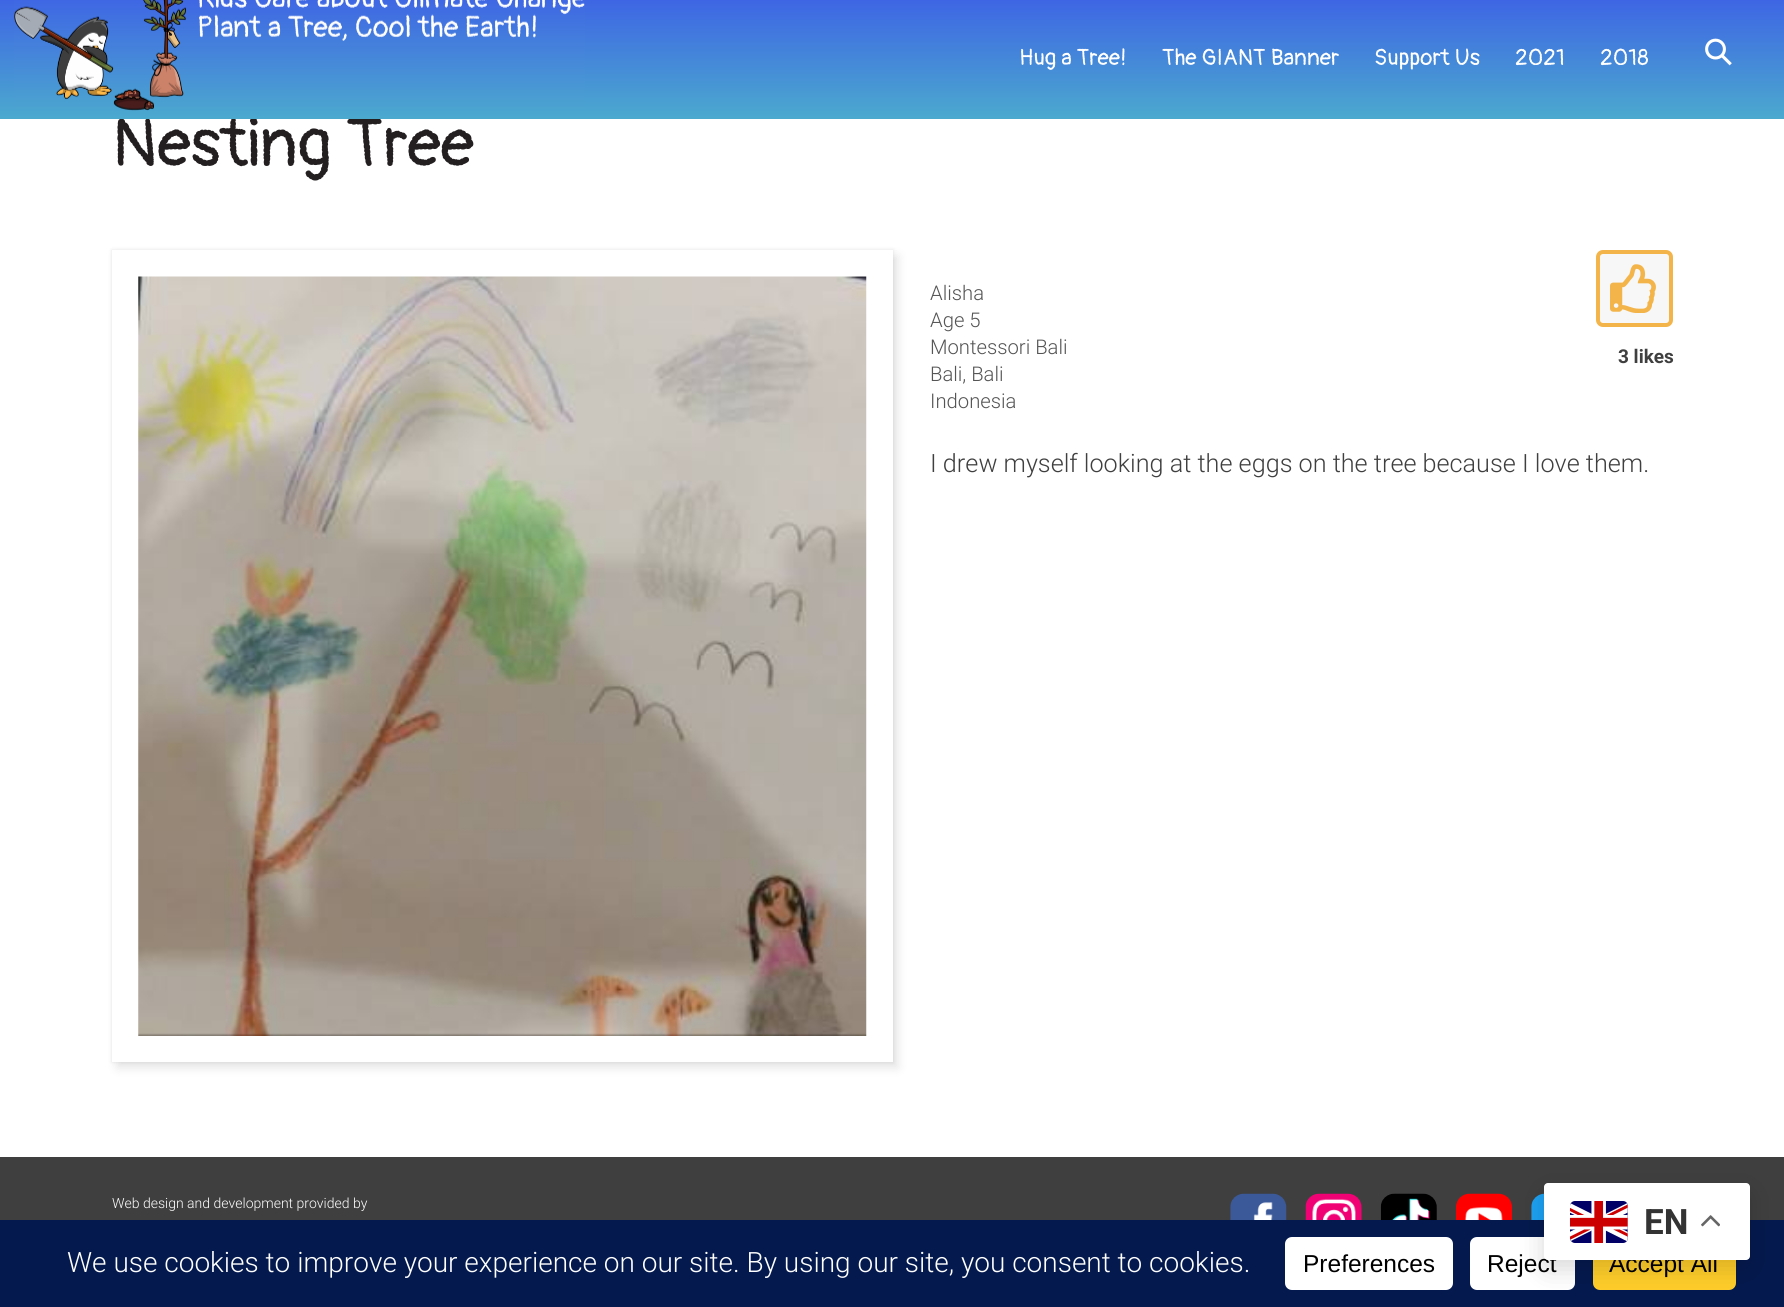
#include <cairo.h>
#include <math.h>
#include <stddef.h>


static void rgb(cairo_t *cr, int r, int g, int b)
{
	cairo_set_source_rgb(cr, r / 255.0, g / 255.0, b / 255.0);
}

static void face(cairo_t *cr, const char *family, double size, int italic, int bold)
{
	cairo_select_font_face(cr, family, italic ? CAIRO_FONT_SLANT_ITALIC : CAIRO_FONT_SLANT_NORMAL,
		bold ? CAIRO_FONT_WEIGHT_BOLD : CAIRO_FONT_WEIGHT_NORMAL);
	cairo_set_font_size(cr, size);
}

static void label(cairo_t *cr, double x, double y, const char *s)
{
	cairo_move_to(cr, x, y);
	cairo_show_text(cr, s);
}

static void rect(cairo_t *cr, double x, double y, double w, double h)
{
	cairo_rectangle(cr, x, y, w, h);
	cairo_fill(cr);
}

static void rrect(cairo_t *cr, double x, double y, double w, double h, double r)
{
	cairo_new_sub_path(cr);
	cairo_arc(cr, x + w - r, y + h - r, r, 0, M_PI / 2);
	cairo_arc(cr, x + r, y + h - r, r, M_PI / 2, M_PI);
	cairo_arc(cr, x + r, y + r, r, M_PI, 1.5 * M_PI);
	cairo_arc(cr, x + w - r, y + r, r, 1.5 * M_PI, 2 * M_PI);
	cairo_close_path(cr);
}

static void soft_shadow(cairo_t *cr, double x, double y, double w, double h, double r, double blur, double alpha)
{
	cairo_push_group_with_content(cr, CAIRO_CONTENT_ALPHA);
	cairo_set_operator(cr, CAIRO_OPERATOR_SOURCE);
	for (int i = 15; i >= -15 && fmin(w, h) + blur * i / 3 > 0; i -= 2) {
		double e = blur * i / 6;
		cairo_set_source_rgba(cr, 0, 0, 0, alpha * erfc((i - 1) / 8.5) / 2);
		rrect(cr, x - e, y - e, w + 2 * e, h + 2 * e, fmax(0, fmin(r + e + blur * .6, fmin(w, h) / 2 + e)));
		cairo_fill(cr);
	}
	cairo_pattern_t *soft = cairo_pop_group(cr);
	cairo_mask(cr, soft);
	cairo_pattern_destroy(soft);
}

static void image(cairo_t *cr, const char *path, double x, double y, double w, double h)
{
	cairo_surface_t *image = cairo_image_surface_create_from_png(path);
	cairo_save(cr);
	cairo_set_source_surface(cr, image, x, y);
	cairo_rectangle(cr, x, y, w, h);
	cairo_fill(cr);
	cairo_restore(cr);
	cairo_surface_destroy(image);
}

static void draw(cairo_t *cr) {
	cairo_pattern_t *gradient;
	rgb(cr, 255, 255, 255);
	cairo_paint(cr);
	face(cr, "Pangolin", 67.25, 0, 0);
	rgb(cr, 35, 31, 32);
	label(cr, 112, 166, "Nesting Tree");
	gradient = cairo_pattern_create_linear(893, 0, 893, 119);
	cairo_pattern_add_color_stop_rgba(gradient, 0, 0.243, 0.4, 0.894, 1);
	cairo_pattern_add_color_stop_rgba(gradient, 1, 0.294, 0.663, 0.808, 1);
	cairo_set_source(cr, gradient);
	cairo_pattern_destroy(gradient);
	rect(cr, 0, 0, 1784, 119);
	image(cr, "image0.png", 14, 0, 571, 111);
	face(cr, "Pangolin", 22.75, 0, 0);
	rgb(cr, 255, 255, 255);
	label(cr, 1019, 65, "Hug a Tree!");
	label(cr, 1162, 65, "The GIANT Banner");
	label(cr, 1374, 65, "Support Us");
	label(cr, 1515, 65, "2021");
	label(cr, 1600, 65, "2018");
	image(cr, "image1.png", 1705, 38, 27, 28);
	rgb(cr, 0, 0, 0);
	soft_shadow(cr, 117, 256, 781, 812, 0, 5, 0.1);
	soft_shadow(cr, 112, 250, 781, 812, 0, 2, 0.1);
	rgb(cr, 255, 255, 255);
	rect(cr, 112, 250, 781, 812);
	image(cr, "image2.png", 138, 276, 729, 760);
	face(cr, "Roboto Light", 20.25, 0, 0);
	rgb(cr, 85, 85, 85);
	label(cr, 930, 300, "Alisha");
	label(cr, 930, 327, "Age 5");
	label(cr, 930, 354, "Montessori Bali");
	label(cr, 930, 381, "Bali, Bali");
	label(cr, 930, 408, "Indonesia");
	rgb(cr, 247, 247, 247);
	rrect(cr, 1598, 252, 73, 73, 5);
	cairo_fill_preserve(cr);
	rgb(cr, 243, 180, 74);
	cairo_set_line_width(cr, 4);
	cairo_stroke(cr);
	image(cr, "image3.png", 1610, 264, 46, 49);
	face(cr, "Roboto", 19, 0, 1);
	rgb(cr, 63, 63, 63);
	label(cr, 1618, 363, "3 likes");
	face(cr, "Roboto Light", 25.2, 0, 0);
	label(cr, 930, 472, "I drew myself looking at the eggs on the tree because I love them.");
	rect(cr, 0, 1157, 1784, 63);
	face(cr, "Roboto Light", 14, 0, 0);
	rgb(cr, 255, 255, 255);
	label(cr, 112, 1208, "Web design and development provided by");
	image(cr, "image4.png", 1230, 1193, 57, 27);
	image(cr, "image5.png", 1305, 1193, 57, 27);
	image(cr, "image6.png", 1380, 1193, 57, 27);
	image(cr, "image7.png", 1456, 1193, 56, 27);
	image(cr, "image8.png", 1531, 1193, 13, 27);
	rgb(cr, 4, 25, 78);
	rect(cr, 0, 1220, 1784, 87);
	rgb(cr, 255, 255, 255);
	rrect(cr, 1470, 1237, 105, 53, 7);
	cairo_fill(cr);
	rgb(cr, 255, 205, 42);
	rrect(cr, 1593, 1237, 143, 53, 7);
	cairo_fill(cr);
	rgb(cr, 0, 0, 0);
	soft_shadow(cr, 1544, 1192, 206, 77, 4, 13, 0.15);
	face(cr, "Liberation Sans", 24.5, 0, 0);
	rgb(cr, 0, 0, 0);
	label(cr, 1487, 1272, "Reject");
	label(cr, 1609, 1272, "Accept All");
	rgb(cr, 255, 255, 255);
	rrect(cr, 1544, 1183, 206, 77, 4);
	cairo_fill(cr);
	image(cr, "image9.png", 1570, 1201, 58, 42);
	face(cr, "Roboto", 35, 0, 1);
	rgb(cr, 51, 51, 51);
	label(cr, 1644, 1234, "EN");
	image(cr, "image10.png", 1701, 1215, 19, 12);
	face(cr, "Roboto Light", 28, 0, 0);
	rgb(cr, 255, 255, 255);
	label(cr, 67, 1272, "We use cookies to improve your experience on our site. By using our site, you consent to cookies.");
	rrect(cr, 1285, 1237, 168, 53, 7);
	cairo_fill(cr);
	face(cr, "Liberation Sans", 24.5, 0, 0);
	rgb(cr, 0, 0, 0);
	label(cr, 1303, 1272, "Preferences");
}

int main(void) {
	cairo_surface_t *surface = cairo_image_surface_create(CAIRO_FORMAT_RGB24, 1784, 1307);
	cairo_t *cr = cairo_create(surface);
	cairo_font_options_t *options = cairo_font_options_create();
	cairo_font_options_set_hint_metrics(options, CAIRO_HINT_METRICS_OFF);
	cairo_font_options_set_hint_style(options, CAIRO_HINT_STYLE_NONE);
	cairo_set_font_options(cr, options);
	cairo_set_miter_limit(cr, 4);
	draw(cr);
	cairo_surface_write_to_png(surface, "render.png");
	cairo_font_options_destroy(options);
	cairo_destroy(cr);
	cairo_surface_destroy(surface);
	return 0;
}
